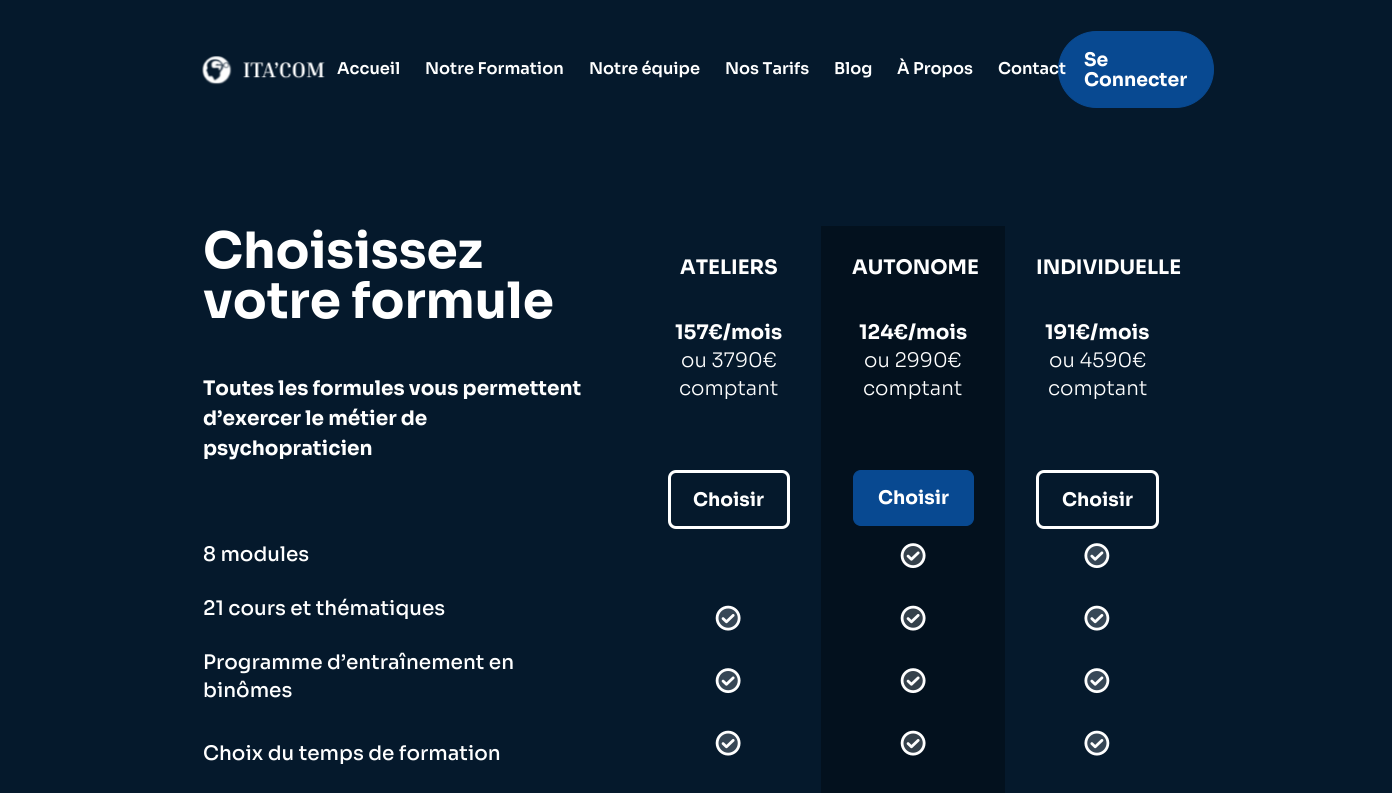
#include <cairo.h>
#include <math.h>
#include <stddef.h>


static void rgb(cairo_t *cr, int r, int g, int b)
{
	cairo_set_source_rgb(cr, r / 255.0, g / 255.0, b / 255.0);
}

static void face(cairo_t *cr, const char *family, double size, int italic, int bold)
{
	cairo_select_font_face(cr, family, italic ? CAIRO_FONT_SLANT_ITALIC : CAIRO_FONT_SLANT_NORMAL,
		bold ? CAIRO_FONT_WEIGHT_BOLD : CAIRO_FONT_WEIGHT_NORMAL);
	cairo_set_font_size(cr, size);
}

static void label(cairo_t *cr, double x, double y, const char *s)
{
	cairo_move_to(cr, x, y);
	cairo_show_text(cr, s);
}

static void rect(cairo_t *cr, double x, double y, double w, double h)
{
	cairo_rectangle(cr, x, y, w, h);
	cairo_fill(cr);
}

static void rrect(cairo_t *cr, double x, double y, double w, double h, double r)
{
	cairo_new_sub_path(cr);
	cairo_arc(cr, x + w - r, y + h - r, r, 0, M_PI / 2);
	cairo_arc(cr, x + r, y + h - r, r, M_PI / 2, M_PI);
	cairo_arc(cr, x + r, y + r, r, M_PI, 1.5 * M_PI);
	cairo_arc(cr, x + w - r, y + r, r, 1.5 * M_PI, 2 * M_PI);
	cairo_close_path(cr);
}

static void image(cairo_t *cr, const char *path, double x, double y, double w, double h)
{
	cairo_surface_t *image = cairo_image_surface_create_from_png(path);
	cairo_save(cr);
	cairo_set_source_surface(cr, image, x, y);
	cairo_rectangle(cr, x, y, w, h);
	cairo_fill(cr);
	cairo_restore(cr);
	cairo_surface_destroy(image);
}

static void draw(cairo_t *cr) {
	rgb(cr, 5, 25, 44);
	cairo_paint(cr);
	image(cr, "image0.png", 202, 56, 123, 29);
	face(cr, "Sora SemiBold", 16.25, 0, 0);
	rgb(cr, 255, 255, 255);
	label(cr, 337, 74, "Accueil");
	label(cr, 425, 74, "Notre Formation");
	label(cr, 589, 74, "Notre équipe");
	label(cr, 725, 74, "Nos Tarifs");
	label(cr, 834, 74, "Blog");
	label(cr, 897, 74, "À Propos");
	rgb(cr, 8, 73, 145);
	rrect(cr, 1058.5, 31.5, 155, 76, 38);
	cairo_fill_preserve(cr);
	cairo_set_line_width(cr, 1);
	cairo_stroke(cr);
	rgb(cr, 255, 255, 255);
	label(cr, 998, 74, "Contact");
	face(cr, "Sora", 18.75, 0, 1);
	label(cr, 1084, 66, "Se");
	label(cr, 1084, 86, "Connecter");
	face(cr, "Sora", 50, 0, 1);
	label(cr, 203, 268, "Choisissez");
	label(cr, 203, 318, "votre formule");
	face(cr, "Sora", 20, 0, 1);
	label(cr, 203, 395, "Toutes les formules vous permettent");
	label(cr, 203, 425, "d’exercer le métier de");
	label(cr, 203, 455, "psychopraticien");
	face(cr, "Sora Medium", 20, 0, 0);
	label(cr, 203, 561, "8 modules");
	label(cr, 203, 615, "21 cours et thématiques");
	label(cr, 203, 669, "Programme d’entraînement en");
	label(cr, 203, 697, "binômes");
	label(cr, 203, 760, "Choix du temps de formation");
	face(cr, "Sora", 20, 0, 1);
	label(cr, 680, 274, "ATELIERS");
	label(cr, 675, 339, "157€/mois");
	face(cr, "Sora Light", 20, 0, 0);
	label(cr, 681, 367, "ou 3790€");
	label(cr, 679, 395, "comptant");
	rrect(cr, 669.5, 471.5, 119, 56, 6.5);
	cairo_set_line_width(cr, 3);
	cairo_stroke(cr);
	face(cr, "Sora", 18.75, 0, 1);
	label(cr, 693, 506, "Choisir");
	image(cr, "image1.png", 715, 605, 26, 26);
	image(cr, "image2.png", 715, 668, 26, 26);
	image(cr, "image1.png", 715, 730, 26, 26);
	rgb(cr, 3, 17, 30);
	rect(cr, 821, 226, 184, 567);
	face(cr, "Sora", 20, 0, 1);
	rgb(cr, 255, 255, 255);
	label(cr, 852, 274, "AUTONOME");
	label(cr, 859, 339, "124€/mois");
	face(cr, "Sora Light", 20, 0, 0);
	label(cr, 864, 367, "ou 2990€");
	label(cr, 863, 395, "comptant");
	rgb(cr, 8, 73, 145);
	rrect(cr, 853.5, 470.5, 120, 55, 7.5);
	cairo_fill_preserve(cr);
	cairo_set_line_width(cr, 1);
	cairo_stroke(cr);
	face(cr, "Sora", 18.75, 0, 1);
	rgb(cr, 255, 255, 255);
	label(cr, 878, 504, "Choisir");
	image(cr, "image3.png", 900, 543, 26, 26);
	image(cr, "image4.png", 900, 605, 26, 26);
	image(cr, "image3.png", 900, 668, 26, 26);
	image(cr, "image4.png", 900, 730, 26, 26);
	face(cr, "Sora", 20, 0, 1);
	label(cr, 1036, 274, "INDIVIDUELLE");
	label(cr, 1045, 339, "191€/mois");
	face(cr, "Sora Light", 20, 0, 0);
	label(cr, 1049, 367, "ou 4590€");
	label(cr, 1048, 395, "comptant");
	rrect(cr, 1037.5, 471.5, 120, 56, 6.5);
	cairo_set_line_width(cr, 3);
	cairo_stroke(cr);
	face(cr, "Sora", 18.75, 0, 1);
	label(cr, 1062, 506, "Choisir");
	image(cr, "image5.png", 1084, 543, 26, 26);
	image(cr, "image6.png", 1084, 605, 26, 26);
	image(cr, "image5.png", 1084, 668, 26, 26);
	image(cr, "image6.png", 1084, 730, 26, 26);
}

int main(void) {
	cairo_surface_t *surface = cairo_image_surface_create(CAIRO_FORMAT_RGB24, 1392, 793);
	cairo_t *cr = cairo_create(surface);
	cairo_font_options_t *options = cairo_font_options_create();
	cairo_font_options_set_hint_metrics(options, CAIRO_HINT_METRICS_OFF);
	cairo_font_options_set_hint_style(options, CAIRO_HINT_STYLE_NONE);
	cairo_set_font_options(cr, options);
	cairo_set_miter_limit(cr, 4);
	draw(cr);
	cairo_surface_write_to_png(surface, "render.png");
	cairo_font_options_destroy(options);
	cairo_destroy(cr);
	cairo_surface_destroy(surface);
	return 0;
}
